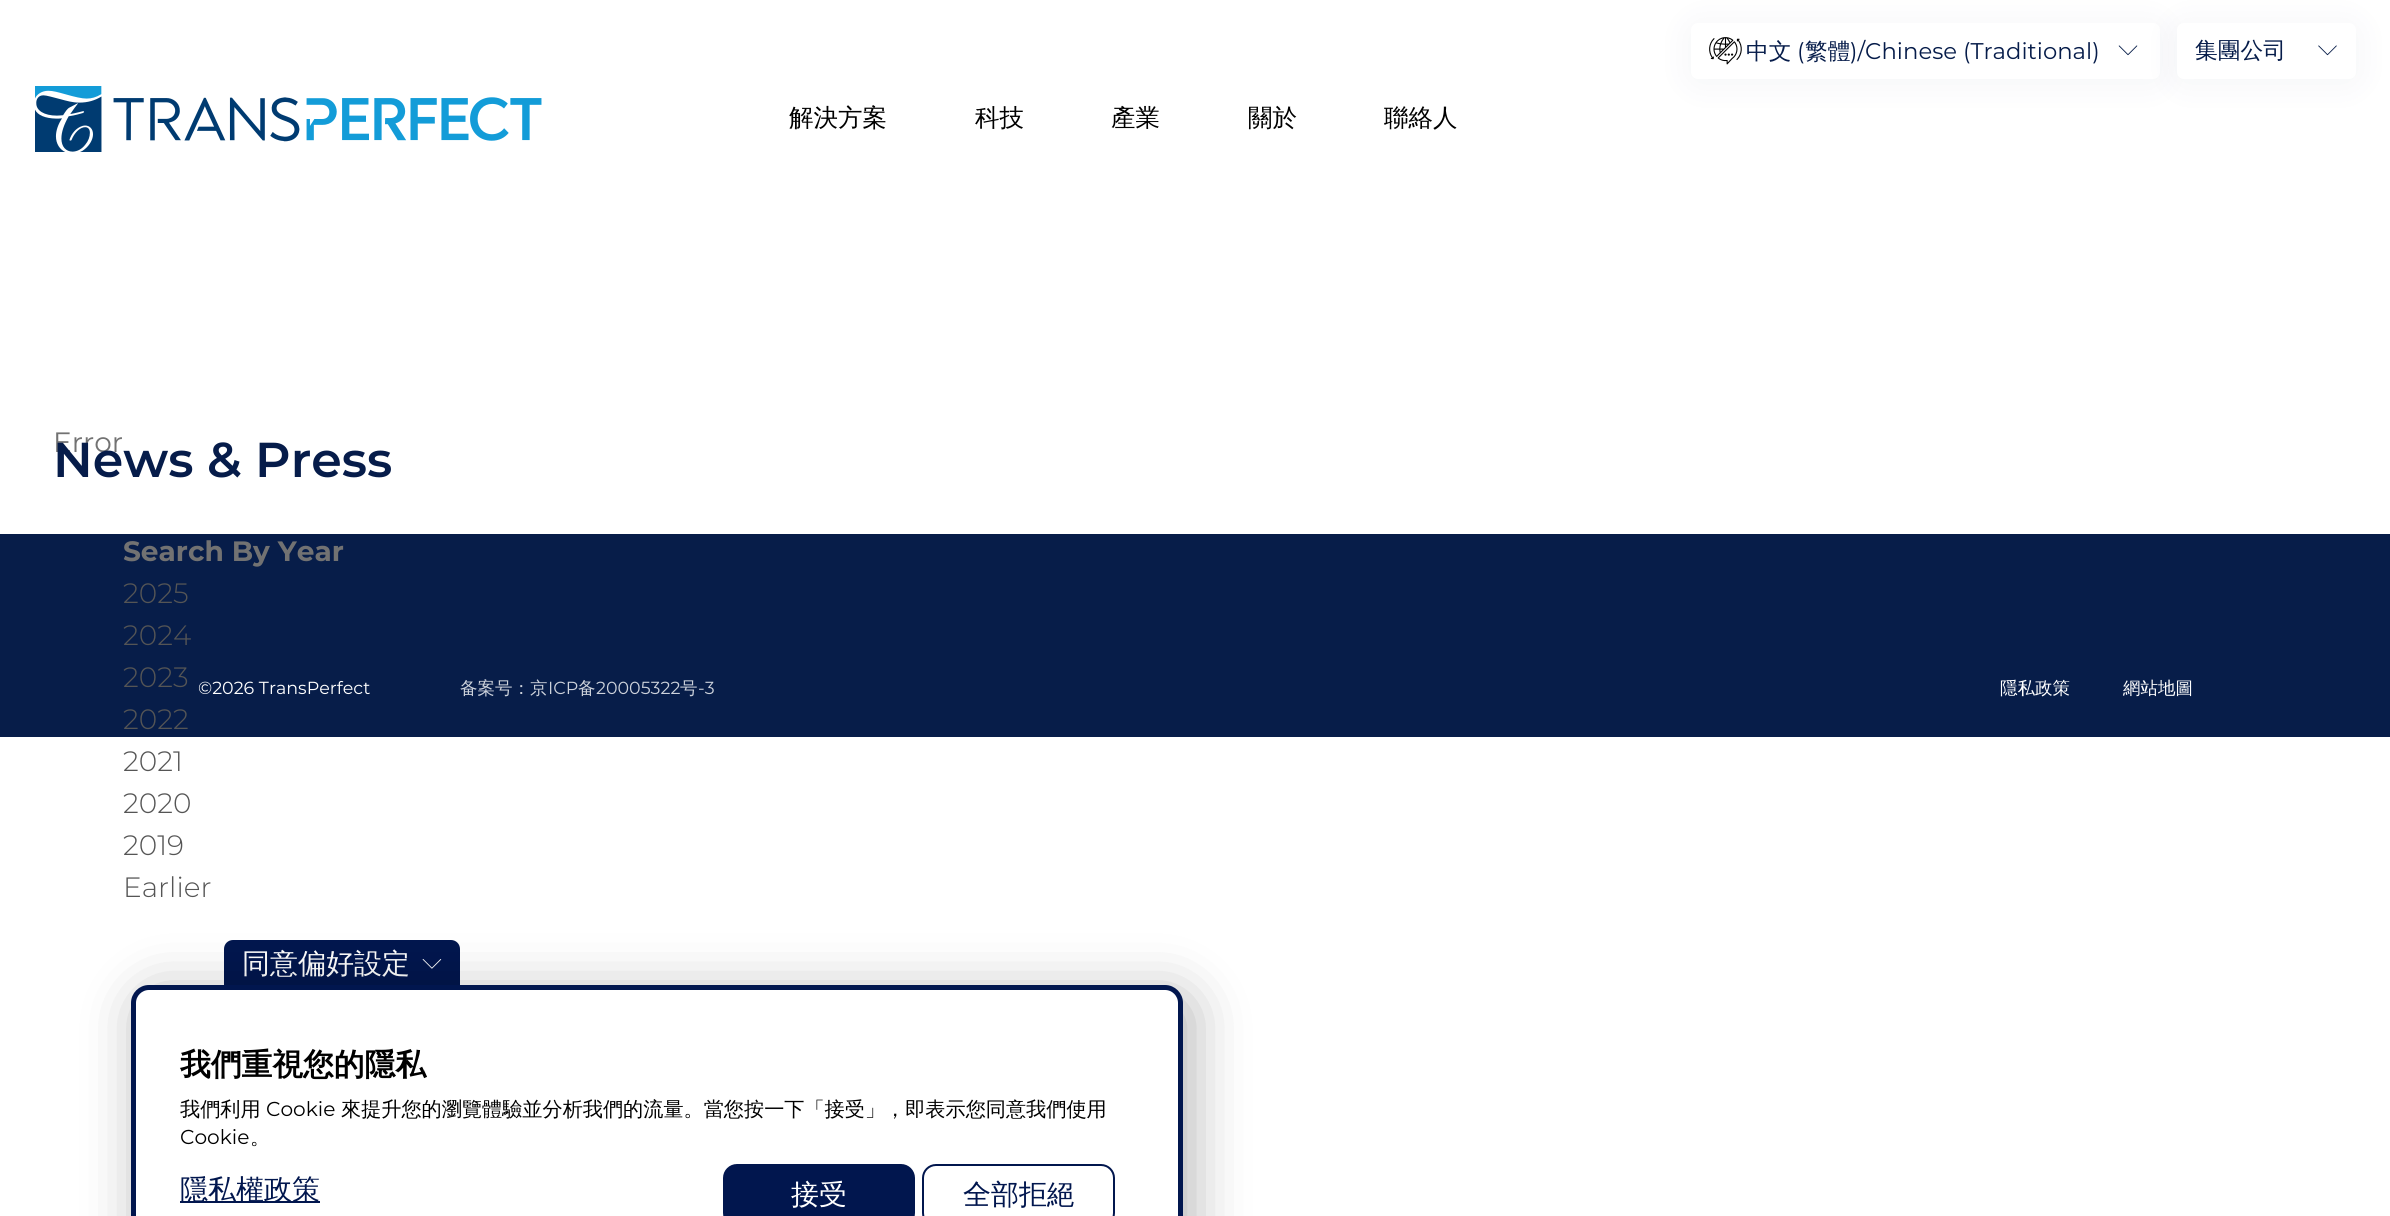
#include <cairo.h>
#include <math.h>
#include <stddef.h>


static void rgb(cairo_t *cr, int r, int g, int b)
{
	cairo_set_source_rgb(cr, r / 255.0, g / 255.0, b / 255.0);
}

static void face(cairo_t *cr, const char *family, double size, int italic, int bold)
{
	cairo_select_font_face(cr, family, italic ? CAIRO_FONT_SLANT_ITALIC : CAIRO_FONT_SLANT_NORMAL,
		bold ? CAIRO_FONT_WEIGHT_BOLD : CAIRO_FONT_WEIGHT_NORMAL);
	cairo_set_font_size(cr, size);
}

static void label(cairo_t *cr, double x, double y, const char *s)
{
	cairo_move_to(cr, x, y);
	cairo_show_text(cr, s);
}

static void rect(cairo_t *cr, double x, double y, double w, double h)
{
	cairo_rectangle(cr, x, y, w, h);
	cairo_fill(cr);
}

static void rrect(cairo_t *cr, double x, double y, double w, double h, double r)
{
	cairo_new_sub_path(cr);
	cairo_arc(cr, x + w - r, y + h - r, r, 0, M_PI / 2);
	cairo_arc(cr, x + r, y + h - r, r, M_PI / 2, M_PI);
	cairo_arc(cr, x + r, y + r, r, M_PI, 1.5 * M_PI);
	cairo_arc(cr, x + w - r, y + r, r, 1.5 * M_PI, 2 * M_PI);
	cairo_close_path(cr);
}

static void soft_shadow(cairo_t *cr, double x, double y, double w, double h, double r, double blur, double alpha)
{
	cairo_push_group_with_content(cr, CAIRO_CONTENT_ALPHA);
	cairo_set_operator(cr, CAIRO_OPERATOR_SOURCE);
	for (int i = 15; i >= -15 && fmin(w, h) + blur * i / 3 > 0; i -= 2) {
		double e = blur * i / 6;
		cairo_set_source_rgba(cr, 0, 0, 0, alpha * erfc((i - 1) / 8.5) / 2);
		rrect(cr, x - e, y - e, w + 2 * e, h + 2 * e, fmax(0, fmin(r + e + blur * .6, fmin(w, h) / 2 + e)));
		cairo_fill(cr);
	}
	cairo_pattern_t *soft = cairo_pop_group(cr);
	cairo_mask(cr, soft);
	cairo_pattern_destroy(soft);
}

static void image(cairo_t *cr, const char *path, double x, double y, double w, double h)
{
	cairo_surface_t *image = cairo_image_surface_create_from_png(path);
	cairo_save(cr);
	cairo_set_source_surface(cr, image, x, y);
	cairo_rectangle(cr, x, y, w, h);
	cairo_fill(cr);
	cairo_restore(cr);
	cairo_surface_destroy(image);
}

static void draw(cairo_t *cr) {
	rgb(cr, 255, 255, 255);
	cairo_paint(cr);
	image(cr, "image0.png", 35, 86, 507, 66);
	rgb(cr, 7, 29, 73);
	soft_shadow(cr, 1691, 26, 469, 56, 7, 17.5, 0.05);
	rgb(cr, 255, 255, 255);
	rrect(cr, 1691, 23, 469, 56, 7);
	cairo_fill(cr);
	image(cr, "image1.png", 1709, 37, 33, 28);
	face(cr, "WenQuanYi Zen Hei Medium", 22.75, 0, 0);
	rgb(cr, 6, 28, 74);
	label(cr, 1746, 59, "中文");
	face(cr, "Montserrat", 22.75, 0, 0);
	label(cr, 1797, 59, "(");
	face(cr, "WenQuanYi Zen Hei Medium", 22.75, 0, 0);
	label(cr, 1805, 59, "繁體");
	face(cr, "Montserrat", 22.75, 0, 0);
	label(cr, 1850, 59, ")/Chinese (Traditional)");
	image(cr, "image2.png", 2118, 45, 20, 11);
	rgb(cr, 7, 29, 73);
	soft_shadow(cr, 2177, 26, 179, 56, 7, 17.5, 0.05);
	rgb(cr, 255, 255, 255);
	rrect(cr, 2177, 23, 179, 56, 7);
	cairo_fill(cr);
	face(cr, "WenQuanYi Zen Hei Medium", 22.75, 0, 0);
	rgb(cr, 6, 28, 74);
	label(cr, 2195, 58, "集團公司");
	image(cr, "image3.png", 2318, 45, 19, 11);
	face(cr, "WenQuanYi Zen Hei Medium", 24.5, 0, 0);
	rgb(cr, 0, 0, 0);
	label(cr, 789, 126, "解決方案");
	label(cr, 975, 126, "科技");
	label(cr, 1111, 126, "產業");
	label(cr, 1248, 126, "關於");
	label(cr, 1384, 126, "聯絡人");
	face(cr, "Montserrat", 28, 0, 0);
	rgb(cr, 114, 114, 114);
	label(cr, 53, 452, "Error");
	face(cr, "Montserrat SemiBold", 49, 0, 0);
	rgb(cr, 6, 28, 74);
	label(cr, 53, 477, "News & Press");
	rgb(cr, 7, 29, 73);
	rect(cr, 0, 534, 2390, 203);
	face(cr, "Montserrat", 28, 0, 1);
	rgb(cr, 114, 114, 114);
	label(cr, 123, 561, "Search By Year");
	face(cr, "Montserrat Light", 28, 0, 0);
	rgb(cr, 85, 85, 85);
	label(cr, 123, 603, "2025");
	label(cr, 123, 645, "2024");
	label(cr, 123, 687, "2023");
	label(cr, 123, 729, "2022");
	label(cr, 123, 771, "2021");
	label(cr, 123, 813, "2020");
	label(cr, 123, 855, "2019");
	label(cr, 123, 897, "Earlier");
	face(cr, "Montserrat", 17.5, 0, 0);
	rgb(cr, 255, 255, 255);
	label(cr, 198, 694, "©2026 TransPerfect");
	face(cr, "WenQuanYi Zen Hei Medium", 17.5, 0, 0);
	label(cr, 2000, 694, "隱私政策");
	label(cr, 2123, 694, "網站地圖");
	rgb(cr, 205, 210, 219);
	label(cr, 460, 694, "备案号：京");
	face(cr, "Montserrat", 17.5, 0, 0);
	label(cr, 548, 694, "ICP");
	face(cr, "WenQuanYi Zen Hei Medium", 17.5, 0, 0);
	label(cr, 578, 694, "备");
	face(cr, "Montserrat", 17.5, 0, 0);
	label(cr, 596, 694, "20005322");
	face(cr, "WenQuanYi Zen Hei Medium", 17.5, 0, 0);
	label(cr, 680, 694, "号");
	face(cr, "Montserrat", 17.5, 0, 0);
	label(cr, 698, 694, "-3");
	rgb(cr, 1, 22, 78);
	cairo_new_path(cr);
	cairo_move_to(cr, 233, 940);
	cairo_line_to(cr, 451, 940);
	cairo_curve_to(cr, 456, 940, 460, 944, 460, 949);
	cairo_line_to(cr, 460, 989);
	cairo_line_to(cr, 224, 989);
	cairo_line_to(cr, 224, 949);
	cairo_curve_to(cr, 224, 944, 228, 940, 233, 940);
	cairo_close_path(cr);
	cairo_fill(cr);
	face(cr, "WenQuanYi Zen Hei Medium", 28, 0, 0);
	rgb(cr, 255, 255, 255);
	label(cr, 242, 973, "同意偏好設定");
	image(cr, "image4.png", 422, 959, 20, 10);
	rgb(cr, 0, 0, 0);
	soft_shadow(cr, 140, 994, 1052, 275, 18, 28, 0.3);
	rgb(cr, 255, 255, 255);
	rrect(cr, 133.5, 987.5, 1047, 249, 15.5);
	cairo_fill_preserve(cr);
	rgb(cr, 1, 22, 78);
	cairo_set_line_width(cr, 5);
	cairo_stroke(cr);
	face(cr, "WenQuanYi Zen Hei", 30.75, 0, 1);
	rgb(cr, 0, 0, 0);
	label(cr, 180, 1075, "我們重視您的隱私");
	face(cr, "WenQuanYi Zen Hei Medium", 20.15, 0, 0);
	label(cr, 180, 1116, "我們利用");
	face(cr, "Montserrat", 20.15, 0, 0);
	label(cr, 266, 1116, "Cookie");
	face(cr, "WenQuanYi Zen Hei Medium", 20.15, 0, 0);
	label(cr, 341, 1116, "來提升您的瀏覽體驗並分析我們的流量。當您按一下「接受」，即表示您同意我們使用");
	face(cr, "Montserrat", 20.15, 0, 0);
	label(cr, 180, 1144, "Cookie");
	face(cr, "WenQuanYi Zen Hei Medium", 20.15, 0, 0);
	label(cr, 250, 1144, "。");
	rgb(cr, 1, 22, 78);
	rect(cr, 180, 1201, 140, 2);
	face(cr, "WenQuanYi Zen Hei Medium", 28, 0, 0);
	label(cr, 180, 1199, "隱私權政策");
	rrect(cr, 724, 1165, 190, 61, 13);
	cairo_fill_preserve(cr);
	cairo_set_line_width(cr, 2);
	cairo_stroke(cr);
	rgb(cr, 255, 255, 255);
	label(cr, 791, 1204, "接受");
	rrect(cr, 923, 1165, 191, 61, 13);
	rgb(cr, 1, 22, 78);
	cairo_stroke(cr);
	label(cr, 963, 1204, "全部拒絕");
}

int main(void) {
	cairo_surface_t *surface = cairo_image_surface_create(CAIRO_FORMAT_RGB24, 2390, 1216);
	cairo_t *cr = cairo_create(surface);
	cairo_font_options_t *options = cairo_font_options_create();
	cairo_font_options_set_hint_metrics(options, CAIRO_HINT_METRICS_OFF);
	cairo_font_options_set_hint_style(options, CAIRO_HINT_STYLE_NONE);
	cairo_set_font_options(cr, options);
	cairo_set_miter_limit(cr, 4);
	draw(cr);
	cairo_surface_write_to_png(surface, "render.png");
	cairo_font_options_destroy(options);
	cairo_destroy(cr);
	cairo_surface_destroy(surface);
	return 0;
}
